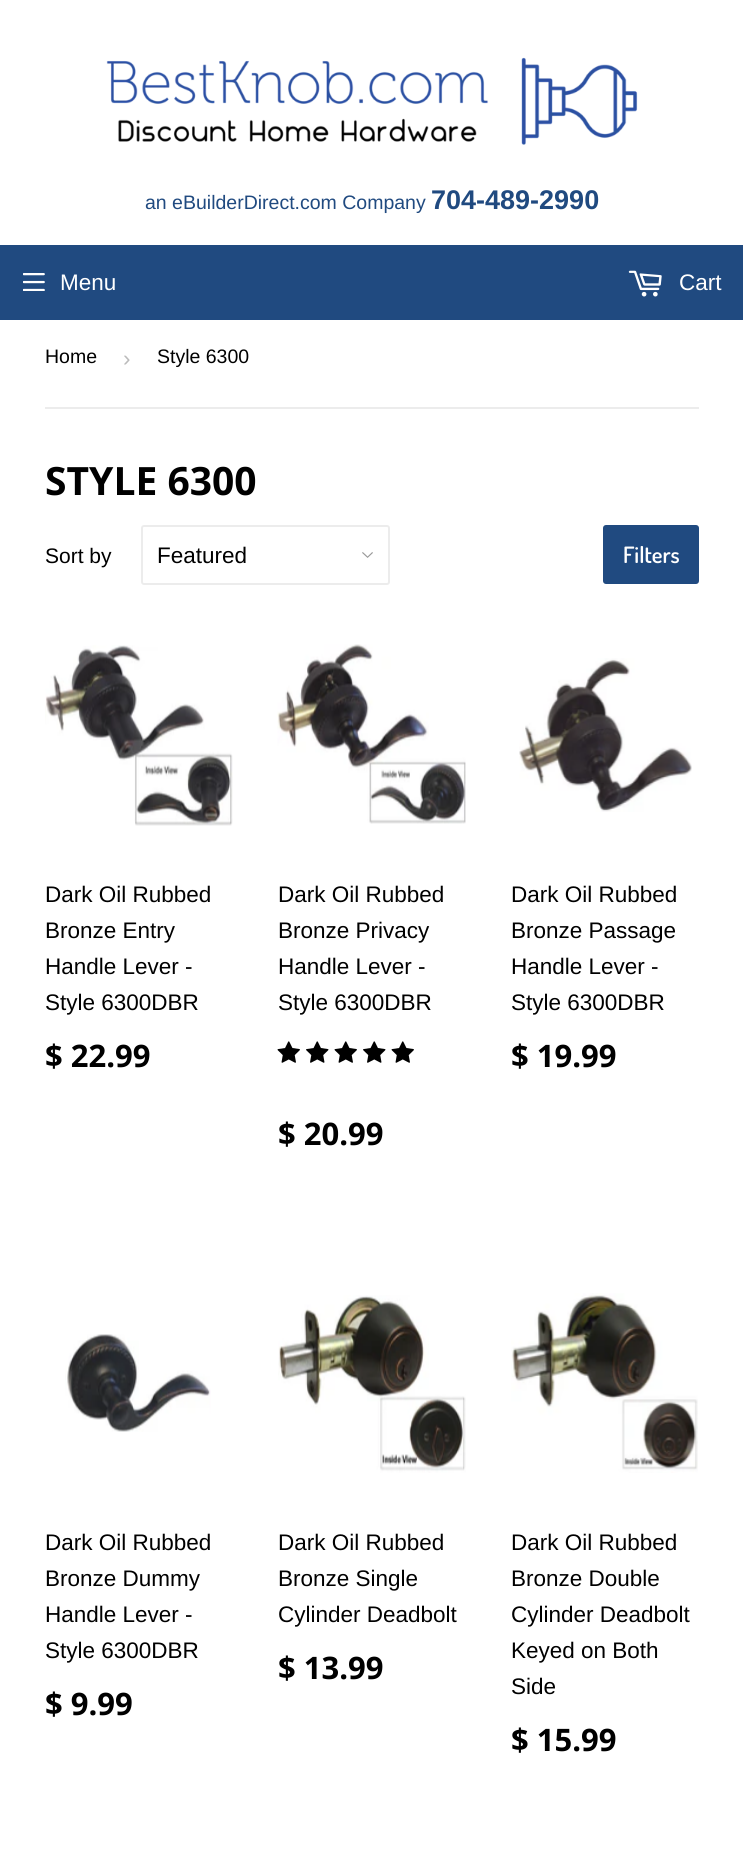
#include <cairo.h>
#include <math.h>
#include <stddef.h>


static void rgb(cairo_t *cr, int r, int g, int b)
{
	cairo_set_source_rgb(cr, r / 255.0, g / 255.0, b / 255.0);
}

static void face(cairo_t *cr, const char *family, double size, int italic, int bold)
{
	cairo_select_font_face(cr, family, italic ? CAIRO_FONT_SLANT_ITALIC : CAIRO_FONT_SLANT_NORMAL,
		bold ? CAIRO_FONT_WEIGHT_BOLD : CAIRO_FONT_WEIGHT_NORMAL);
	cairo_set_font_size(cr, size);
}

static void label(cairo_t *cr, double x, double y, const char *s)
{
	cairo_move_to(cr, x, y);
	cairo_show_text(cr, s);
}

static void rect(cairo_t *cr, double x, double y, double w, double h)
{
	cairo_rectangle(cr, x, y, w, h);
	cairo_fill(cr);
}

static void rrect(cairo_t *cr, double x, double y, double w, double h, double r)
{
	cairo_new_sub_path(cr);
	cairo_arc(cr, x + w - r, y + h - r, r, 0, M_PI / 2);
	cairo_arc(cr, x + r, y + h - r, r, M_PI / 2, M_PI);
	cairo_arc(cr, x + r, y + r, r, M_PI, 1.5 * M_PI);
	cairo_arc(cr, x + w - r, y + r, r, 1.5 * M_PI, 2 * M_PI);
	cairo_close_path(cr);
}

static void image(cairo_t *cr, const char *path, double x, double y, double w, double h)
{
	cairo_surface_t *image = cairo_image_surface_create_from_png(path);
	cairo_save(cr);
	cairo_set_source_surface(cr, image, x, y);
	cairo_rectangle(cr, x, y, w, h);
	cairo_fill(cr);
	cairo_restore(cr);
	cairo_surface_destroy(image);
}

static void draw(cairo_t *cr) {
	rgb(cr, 255, 255, 255);
	cairo_paint(cr);
	image(cr, "image0.png", 106, 57, 532, 88);
	face(cr, "Liberation Sans", 19.5, 0, 0);
	rgb(cr, 32, 74, 128);
	label(cr, 145, 209, "an eBuilderDirect.com Company");
	face(cr, "Liberation Sans", 27, 0, 1);
	label(cr, 431, 209, "704-489-2990");
	rect(cr, 0, 245, 743, 75);
	image(cr, "image1.png", 23, 273, 22, 18);
	face(cr, "Liberation Sans", 22.5, 0, 0);
	rgb(cr, 255, 255, 255);
	label(cr, 60, 290, "Menu");
	image(cr, "image2.png", 628, 270, 34, 27);
	label(cr, 679, 290, "Cart");
	rgb(cr, 236, 236, 236);
	rect(cr, 45, 407, 654, 2);
	face(cr, "Liberation Sans", 19.5, 0, 0);
	rgb(cr, 0, 0, 0);
	label(cr, 45, 363, "Home");
	face(cr, "Liberation Sans", 22.5, 0, 0);
	rgb(cr, 187, 187, 187);
	label(cr, 123, 366, "›");
	face(cr, "Liberation Sans", 19.5, 0, 0);
	rgb(cr, 0, 0, 0);
	label(cr, 157, 363, "Style 6300");
	face(cr, "Open Sans", 39, 0, 1);
	label(cr, 45, 495, "STYLE 6300");
	face(cr, "Liberation Sans", 21, 0, 0);
	label(cr, 45, 563, "Sort by");
	image(cr, "image3.png", 362, 552, 11, 6);
	rrect(cr, 142, 526, 247, 58, 2);
	rgb(cr, 236, 236, 236);
	cairo_stroke(cr);
	face(cr, "Liberation Sans", 22.5, 0, 0);
	rgb(cr, 0, 0, 0);
	label(cr, 157, 563, "Featured");
	rgb(cr, 32, 74, 128);
	rrect(cr, 603, 525, 96, 59, 3);
	cairo_fill(cr);
	face(cr, "Dosis SemiBold", 22.5, 0, 0);
	rgb(cr, 255, 255, 255);
	label(cr, 623, 563, "Filters");
	image(cr, "image4.png", 45, 645, 188, 181);
	face(cr, "Liberation Sans", 22.5, 0, 0);
	rgb(cr, 0, 0, 0);
	label(cr, 45, 902, "Dark Oil Rubbed");
	label(cr, 45, 938, "Bronze Entry");
	label(cr, 45, 974, "Handle Lever -");
	label(cr, 45, 1010, "Style 6300DBR");
	face(cr, "Open Sans", 31, 0, 1);
	label(cr, 45, 1067, "$ 22.99");
	image(cr, "image5.png", 277, 644, 189, 180);
	face(cr, "Liberation Sans", 22.5, 0, 0);
	label(cr, 278, 902, "Dark Oil Rubbed");
	label(cr, 278, 938, "Bronze Privacy");
	label(cr, 278, 974, "Handle Lever -");
	label(cr, 278, 1010, "Style 6300DBR");
	image(cr, "image6.png", 277, 1041, 23, 22);
	image(cr, "image7.png", 306, 1041, 23, 22);
	image(cr, "image6.png", 334, 1041, 23, 22);
	image(cr, "image7.png", 363, 1041, 23, 22);
	image(cr, "image6.png", 391, 1041, 23, 22);
	face(cr, "Open Sans", 31, 0, 1);
	label(cr, 278, 1145, "$ 20.99");
	image(cr, "image8.png", 519, 658, 173, 154);
	face(cr, "Liberation Sans", 22.5, 0, 0);
	label(cr, 511, 902, "Dark Oil Rubbed");
	label(cr, 511, 938, "Bronze Passage");
	label(cr, 511, 974, "Handle Lever -");
	label(cr, 511, 1010, "Style 6300DBR");
	face(cr, "Open Sans", 31, 0, 1);
	label(cr, 511, 1067, "$ 19.99");
	image(cr, "image9.png", 65, 1334, 146, 98);
	face(cr, "Liberation Sans", 22.5, 0, 0);
	label(cr, 45, 1550, "Dark Oil Rubbed");
	label(cr, 45, 1586, "Bronze Dummy");
	label(cr, 45, 1622, "Handle Lever -");
	label(cr, 45, 1658, "Style 6300DBR");
	face(cr, "Open Sans", 31, 0, 1);
	label(cr, 45, 1715, "$ 9.99");
	image(cr, "image10.png", 278, 1295, 188, 178);
	face(cr, "Liberation Sans", 22.5, 0, 0);
	label(cr, 278, 1550, "Dark Oil Rubbed");
	label(cr, 278, 1586, "Bronze Single");
	label(cr, 278, 1622, "Cylinder Deadbolt");
	face(cr, "Open Sans", 31, 0, 1);
	label(cr, 278, 1679, "$ 13.99");
	image(cr, "image11.png", 511, 1293, 187, 180);
	face(cr, "Liberation Sans", 22.5, 0, 0);
	label(cr, 511, 1550, "Dark Oil Rubbed");
	label(cr, 511, 1586, "Bronze Double");
	label(cr, 511, 1622, "Cylinder Deadbolt");
	label(cr, 511, 1658, "Keyed on Both");
	label(cr, 511, 1694, "Side");
	face(cr, "Open Sans", 31, 0, 1);
	label(cr, 511, 1751, "$ 15.99");
}

int main(void) {
	cairo_surface_t *surface = cairo_image_surface_create(CAIRO_FORMAT_RGB24, 743, 1849);
	cairo_t *cr = cairo_create(surface);
	cairo_font_options_t *options = cairo_font_options_create();
	cairo_font_options_set_hint_metrics(options, CAIRO_HINT_METRICS_OFF);
	cairo_font_options_set_hint_style(options, CAIRO_HINT_STYLE_NONE);
	cairo_set_font_options(cr, options);
	cairo_set_miter_limit(cr, 4);
	draw(cr);
	cairo_surface_write_to_png(surface, "render.png");
	cairo_font_options_destroy(options);
	cairo_destroy(cr);
	cairo_surface_destroy(surface);
	return 0;
}
